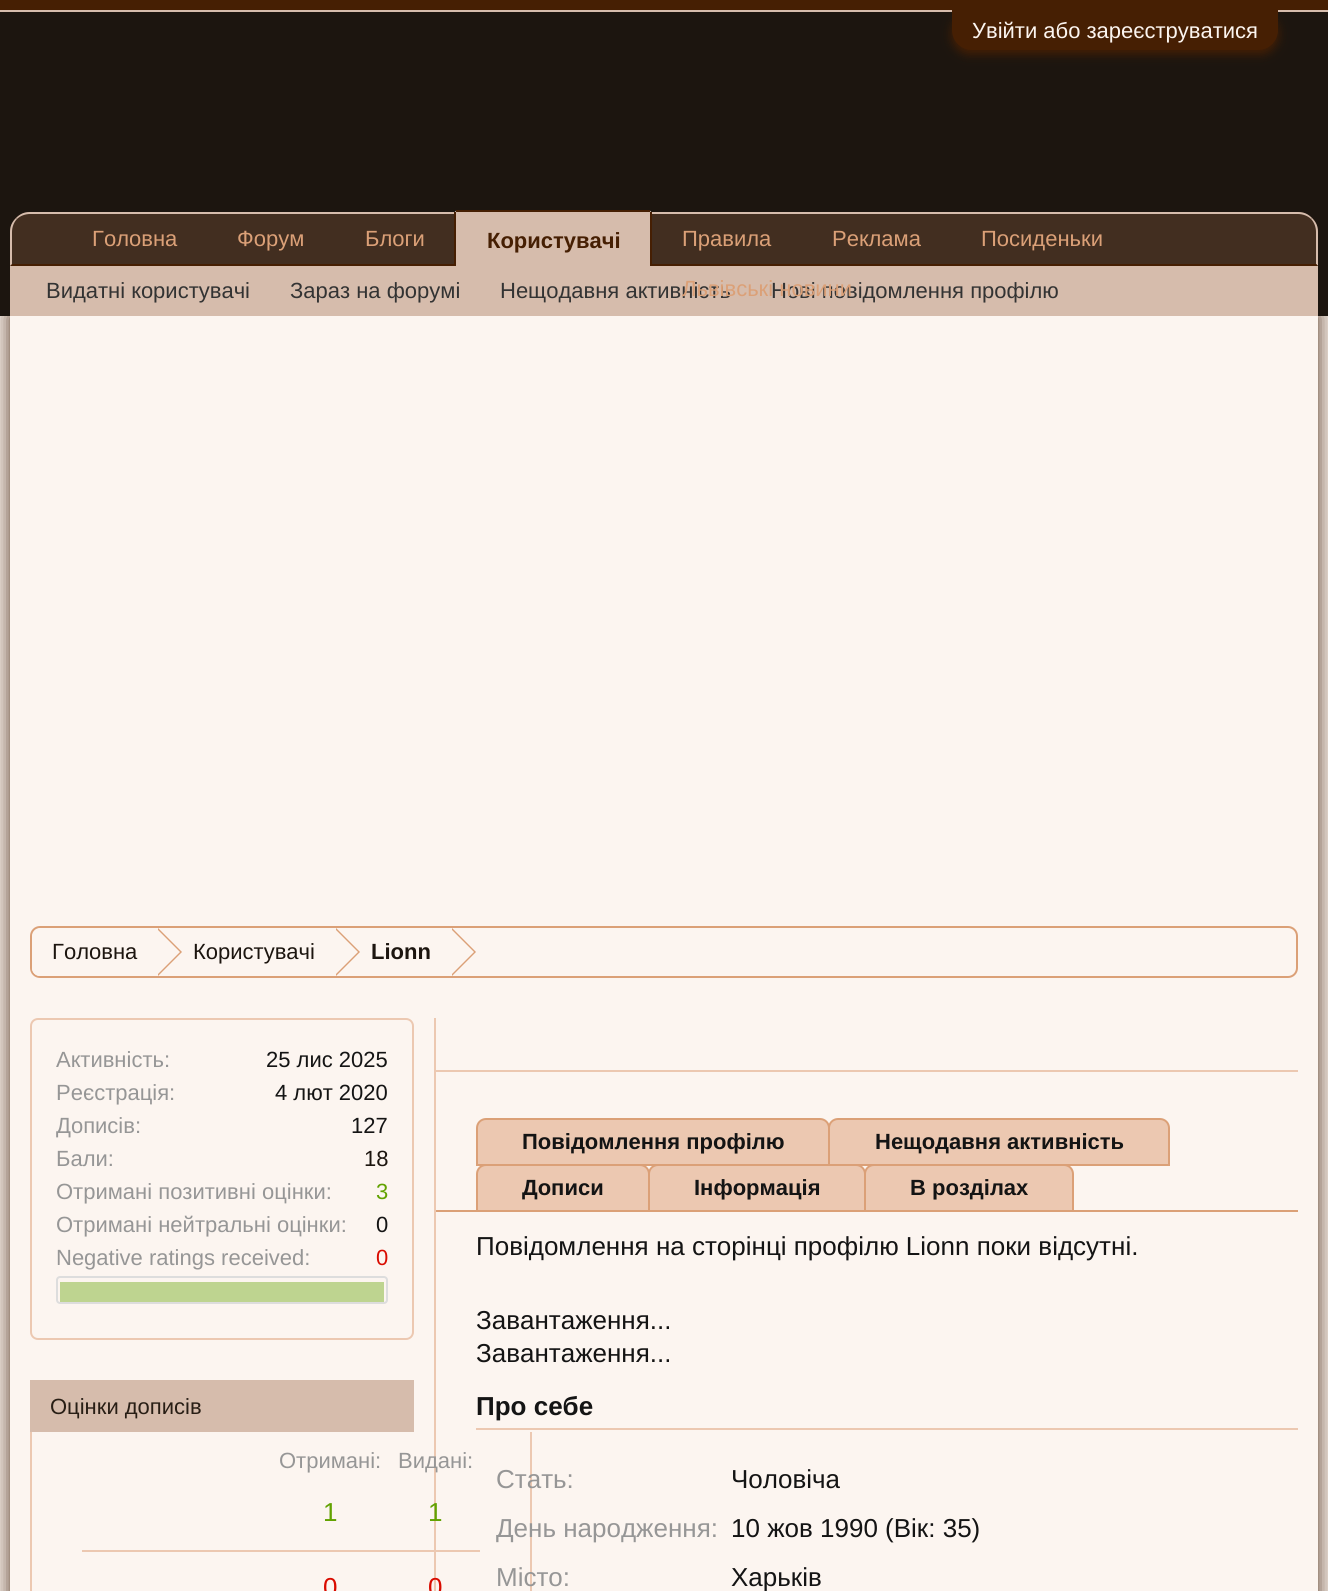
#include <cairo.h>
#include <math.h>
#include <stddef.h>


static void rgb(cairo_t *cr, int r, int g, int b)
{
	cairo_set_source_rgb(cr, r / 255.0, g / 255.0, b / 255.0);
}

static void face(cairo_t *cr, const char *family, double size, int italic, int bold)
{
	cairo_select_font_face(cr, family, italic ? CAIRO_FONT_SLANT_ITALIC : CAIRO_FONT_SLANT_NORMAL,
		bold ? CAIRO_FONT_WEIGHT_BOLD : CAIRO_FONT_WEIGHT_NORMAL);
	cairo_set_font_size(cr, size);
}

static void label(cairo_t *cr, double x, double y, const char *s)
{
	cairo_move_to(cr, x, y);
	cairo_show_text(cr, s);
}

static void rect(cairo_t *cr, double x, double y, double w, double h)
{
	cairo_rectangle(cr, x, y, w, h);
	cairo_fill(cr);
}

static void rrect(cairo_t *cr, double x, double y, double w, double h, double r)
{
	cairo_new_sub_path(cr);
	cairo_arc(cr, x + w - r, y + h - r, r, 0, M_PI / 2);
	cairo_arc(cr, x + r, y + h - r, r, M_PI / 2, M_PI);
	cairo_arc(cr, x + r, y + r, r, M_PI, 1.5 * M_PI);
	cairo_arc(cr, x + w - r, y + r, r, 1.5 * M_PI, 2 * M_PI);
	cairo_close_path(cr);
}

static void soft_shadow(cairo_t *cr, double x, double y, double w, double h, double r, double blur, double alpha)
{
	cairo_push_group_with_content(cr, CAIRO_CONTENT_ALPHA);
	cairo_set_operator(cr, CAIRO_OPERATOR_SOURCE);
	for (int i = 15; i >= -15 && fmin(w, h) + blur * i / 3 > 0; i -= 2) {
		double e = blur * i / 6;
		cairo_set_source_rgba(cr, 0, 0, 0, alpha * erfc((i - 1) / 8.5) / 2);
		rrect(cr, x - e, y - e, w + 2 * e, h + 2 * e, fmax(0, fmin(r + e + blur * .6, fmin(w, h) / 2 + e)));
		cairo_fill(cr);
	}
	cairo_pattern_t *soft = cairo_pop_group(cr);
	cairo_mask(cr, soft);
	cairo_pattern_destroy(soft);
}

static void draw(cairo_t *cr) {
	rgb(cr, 232, 222, 215);
	cairo_paint(cr);
	rgb(cr, 70, 31, 3);
	rect(cr, 0, 0, 1328, 10);
	rgb(cr, 214, 188, 172);
	rect(cr, 0, 10, 1328, 2);
	rgb(cr, 92, 63, 43);
	soft_shadow(cr, 10, 316, 1308, 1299, 0, 8, 1);
	rgb(cr, 28, 21, 15);
	rect(cr, 0, 12, 1328, 304);
	rgb(cr, 70, 31, 3);
	soft_shadow(cr, 952, 14, 326, 40, 20, 5, 1);
	rgb(cr, 70, 31, 3);
	cairo_new_path(cr);
	cairo_move_to(cr, 952, 10);
	cairo_line_to(cr, 1278, 10);
	cairo_line_to(cr, 1278, 30);
	cairo_curve_to(cr, 1278, 41, 1269, 50, 1258, 50);
	cairo_line_to(cr, 972, 50);
	cairo_curve_to(cr, 961, 50, 952, 41, 952, 30);
	cairo_close_path(cr);
	cairo_fill(cr);
	face(cr, "Liberation Sans", 22, 0, 0);
	rgb(cr, 252, 245, 240);
	label(cr, 972, 38, "Увійти або зареєструватися");
	rgb(cr, 66, 46, 32);
	cairo_new_path(cr);
	cairo_move_to(cr, 30, 212);
	cairo_line_to(cr, 1298, 212);
	cairo_curve_to(cr, 1309, 212, 1318, 221, 1318, 232);
	cairo_line_to(cr, 1318, 266);
	cairo_line_to(cr, 10, 266);
	cairo_line_to(cr, 10, 232);
	cairo_curve_to(cr, 10, 221, 19, 212, 30, 212);
	cairo_close_path(cr);
	cairo_fill(cr);
	rgb(cr, 214, 188, 172);
	cairo_new_path(cr);
	cairo_move_to(cr, 30, 212);
	cairo_curve_to(cr, 24, 212, 20, 214, 16, 218);
	cairo_line_to(cr, 17, 219);
	cairo_curve_to(cr, 20, 216, 25, 214, 30, 214);
	cairo_line_to(cr, 1298, 214);
	cairo_curve_to(cr, 1303, 214, 1308, 216, 1311, 219);
	cairo_line_to(cr, 1312, 218);
	cairo_curve_to(cr, 1308, 214, 1304, 212, 1298, 212);
	cairo_close_path(cr);
	cairo_fill(cr);
	cairo_new_path(cr);
	cairo_move_to(cr, 1318, 266);
	cairo_line_to(cr, 1318, 232);
	cairo_curve_to(cr, 1318, 226, 1316, 222, 1312, 218);
	cairo_line_to(cr, 1311, 219);
	cairo_curve_to(cr, 1314, 222, 1316, 227, 1316, 232);
	cairo_line_to(cr, 1316, 264);
	cairo_close_path(cr);
	cairo_fill(cr);
	rgb(cr, 70, 31, 3);
	cairo_new_path(cr);
	cairo_move_to(cr, 1318, 266);
	cairo_line_to(cr, 1316, 264);
	cairo_line_to(cr, 12, 264);
	cairo_line_to(cr, 10, 266);
	cairo_close_path(cr);
	cairo_fill(cr);
	rgb(cr, 214, 188, 172);
	cairo_new_path(cr);
	cairo_move_to(cr, 10, 266);
	cairo_line_to(cr, 12, 264);
	cairo_line_to(cr, 12, 232);
	cairo_curve_to(cr, 12, 227, 14, 222, 17, 219);
	cairo_line_to(cr, 16, 218);
	cairo_curve_to(cr, 12, 222, 10, 226, 10, 232);
	cairo_close_path(cr);
	cairo_fill(cr);
	rgb(cr, 219, 160, 119);
	label(cr, 92, 246, "Головна");
	label(cr, 237, 246, "Форум");
	label(cr, 365, 246, "Блоги");
	label(cr, 682, 246, "Правила");
	label(cr, 832, 246, "Реклама");
	label(cr, 981, 246, "Посиденьки");
	rgb(cr, 214, 188, 172);
	cairo_new_path(cr);
	cairo_move_to(cr, 458, 210);
	cairo_line_to(cr, 648, 210);
	cairo_curve_to(cr, 650, 210, 652, 212, 652, 214);
	cairo_line_to(cr, 652, 266);
	cairo_line_to(cr, 454, 266);
	cairo_line_to(cr, 454, 214);
	cairo_curve_to(cr, 454, 212, 456, 210, 458, 210);
	cairo_close_path(cr);
	cairo_fill(cr);
	rgb(cr, 70, 31, 3);
	rect(cr, 456, 210, 194, 2);
	rect(cr, 650, 212, 2, 54);
	rect(cr, 454, 212, 2, 54);
	face(cr, "Liberation Sans", 22, 0, 1);
	label(cr, 487, 248, "Користувачі");
	rgb(cr, 214, 188, 172);
	rect(cr, 10, 266, 1308, 50);
	face(cr, "Liberation Sans", 22, 0, 0);
	rgb(cr, 51, 51, 51);
	label(cr, 46, 298, "Видатні користувачі");
	label(cr, 290, 298, "Зараз на форумі");
	label(cr, 500, 298, "Нещодавня активність");
	label(cr, 771, 298, "Нові повідомлення профілю");
	rgb(cr, 219, 160, 119);
	label(cr, 682, 296, "Львівські новини");
	rgb(cr, 252, 245, 240);
	rect(cr, 10, 316, 1308, 1275);
	rrect(cr, 31, 927, 1266, 50, 9);
	rgb(cr, 219, 160, 119);
	cairo_stroke(cr);
	cairo_save(cr);
	rrect(cr, 32, 928, 1264, 48, 8);
	cairo_clip(cr);
	rgb(cr, 252, 245, 240);
	cairo_new_path(cr);
	cairo_move_to(cr, 42, 928);
	cairo_line_to(cr, 158, 928);
	cairo_line_to(cr, 158, 978);
	cairo_line_to(cr, 42, 978);
	cairo_curve_to(cr, 36.5, 978, 32, 973.5, 32, 968);
	cairo_line_to(cr, 32, 938);
	cairo_curve_to(cr, 32, 932.5, 36.5, 928, 42, 928);
	cairo_close_path(cr);
	cairo_fill(cr);
	cairo_restore(cr);
	rgb(cr, 28, 21, 15);
	label(cr, 52, 959, "Головна");
	rgb(cr, 219, 160, 119);
	cairo_new_path(cr);
	cairo_move_to(cr, 158, 976);
	cairo_line_to(cr, 158, 928);
	cairo_line_to(cr, 182, 952);
	cairo_close_path(cr);
	cairo_fill(cr);
	rgb(cr, 252, 245, 240);
	cairo_new_path(cr);
	cairo_move_to(cr, 156, 976);
	cairo_line_to(cr, 156, 928);
	cairo_line_to(cr, 180, 952);
	cairo_close_path(cr);
	cairo_fill(cr);
	rgb(cr, 28, 21, 15);
	label(cr, 193, 959, "Користувачі");
	rgb(cr, 219, 160, 119);
	cairo_new_path(cr);
	cairo_move_to(cr, 336, 976);
	cairo_line_to(cr, 336, 928);
	cairo_line_to(cr, 360, 952);
	cairo_close_path(cr);
	cairo_fill(cr);
	rgb(cr, 252, 245, 240);
	cairo_new_path(cr);
	cairo_move_to(cr, 334, 976);
	cairo_line_to(cr, 334, 928);
	cairo_line_to(cr, 358, 952);
	cairo_close_path(cr);
	cairo_fill(cr);
	face(cr, "Liberation Sans", 22, 0, 1);
	rgb(cr, 28, 21, 15);
	label(cr, 371, 959, "Lionn");
	rgb(cr, 219, 160, 119);
	cairo_new_path(cr);
	cairo_move_to(cr, 452, 976);
	cairo_line_to(cr, 452, 928);
	cairo_line_to(cr, 476, 952);
	cairo_close_path(cr);
	cairo_fill(cr);
	rgb(cr, 252, 245, 240);
	cairo_new_path(cr);
	cairo_move_to(cr, 450, 976);
	cairo_line_to(cr, 450, 928);
	cairo_line_to(cr, 474, 952);
	cairo_close_path(cr);
	cairo_fill(cr);
	rrect(cr, 31, 1019, 382, 320, 7);
	rgb(cr, 236, 200, 177);
	cairo_stroke(cr);
	face(cr, "Liberation Sans", 22, 0, 0);
	rgb(cr, 150, 150, 150);
	label(cr, 56, 1067, "Активність:");
	rgb(cr, 20, 20, 20);
	label(cr, 266, 1067, "25 лис 2025");
	rgb(cr, 150, 150, 150);
	label(cr, 56, 1100, "Реєстрація:");
	rgb(cr, 20, 20, 20);
	label(cr, 275, 1100, "4 лют 2020");
	rgb(cr, 150, 150, 150);
	label(cr, 56, 1133, "Дописів:");
	rgb(cr, 20, 20, 20);
	label(cr, 351, 1133, "127");
	rgb(cr, 150, 150, 150);
	label(cr, 56, 1166, "Бали:");
	rgb(cr, 28, 21, 15);
	label(cr, 364, 1166, "18");
	rgb(cr, 150, 150, 150);
	label(cr, 56, 1199, "Отримані позитивні оцінки:");
	rgb(cr, 98, 162, 1);
	label(cr, 376, 1199, "3");
	rgb(cr, 150, 150, 150);
	label(cr, 56, 1232, "Отримані нейтральні оцінки:");
	rgb(cr, 20, 20, 20);
	label(cr, 376, 1232, "0");
	rgb(cr, 150, 150, 150);
	label(cr, 56, 1265, "Negative ratings received:");
	rgb(cr, 217, 11, 0);
	label(cr, 376, 1265, "0");
	rrect(cr, 57, 1277, 330, 26, 3);
	rgb(cr, 221, 221, 221);
	cairo_stroke(cr);
	rgb(cr, 190, 212, 144);
	rect(cr, 60, 1282, 324, 20);
	rgb(cr, 214, 188, 172);
	rect(cr, 30, 1380, 384, 52);
	rgb(cr, 40, 30, 21);
	label(cr, 50, 1414, "Оцінки дописів");
	rgb(cr, 236, 200, 177);
	rect(cr, 530, 1432, 2, 159);
	rect(cr, 30, 1432, 2, 159);
	rgb(cr, 150, 150, 150);
	label(cr, 279, 1468, "Отримані:");
	rgb(cr, 236, 200, 177);
	rect(cr, 434, 1018, 2, 573);
	rgb(cr, 150, 150, 150);
	label(cr, 398, 1468, "Видані:");
	face(cr, "Liberation Sans", 26, 0, 0);
	rgb(cr, 98, 162, 1);
	label(cr, 323, 1521, "1");
	label(cr, 428, 1521, "1");
	rgb(cr, 236, 200, 177);
	rect(cr, 82, 1550, 398, 2);
	rgb(cr, 217, 11, 0);
	label(cr, 323, 1596, "0");
	label(cr, 428, 1596, "0");
	rgb(cr, 236, 200, 177);
	rect(cr, 436, 1070, 862, 2);
	rgb(cr, 219, 160, 119);
	rect(cr, 436, 1210, 862, 2);
	rgb(cr, 236, 200, 177);
	cairo_new_path(cr);
	cairo_move_to(cr, 486, 1119);
	cairo_line_to(cr, 820, 1119);
	cairo_curve_to(cr, 825, 1119, 829, 1123, 829, 1128);
	cairo_line_to(cr, 829, 1165);
	cairo_line_to(cr, 477, 1165);
	cairo_line_to(cr, 477, 1128);
	cairo_curve_to(cr, 477, 1123, 481, 1119, 486, 1119);
	cairo_close_path(cr);
	cairo_fill_preserve(cr);
	rgb(cr, 219, 160, 119);
	cairo_stroke(cr);
	face(cr, "Liberation Sans", 22, 0, 1);
	rgb(cr, 20, 20, 20);
	label(cr, 522, 1149, "Повідомлення профілю");
	rgb(cr, 236, 200, 177);
	cairo_new_path(cr);
	cairo_move_to(cr, 838, 1119);
	cairo_line_to(cr, 1160, 1119);
	cairo_curve_to(cr, 1165, 1119, 1169, 1123, 1169, 1128);
	cairo_line_to(cr, 1169, 1165);
	cairo_line_to(cr, 829, 1165);
	cairo_line_to(cr, 829, 1128);
	cairo_curve_to(cr, 829, 1123, 833, 1119, 838, 1119);
	cairo_close_path(cr);
	cairo_fill_preserve(cr);
	rgb(cr, 219, 160, 119);
	cairo_stroke(cr);
	rgb(cr, 20, 20, 20);
	label(cr, 875, 1149, "Нещодавня активність");
	rgb(cr, 236, 200, 177);
	cairo_new_path(cr);
	cairo_move_to(cr, 486, 1165);
	cairo_line_to(cr, 640, 1165);
	cairo_curve_to(cr, 645, 1165, 649, 1169, 649, 1174);
	cairo_line_to(cr, 649, 1211);
	cairo_line_to(cr, 477, 1211);
	cairo_line_to(cr, 477, 1174);
	cairo_curve_to(cr, 477, 1169, 481, 1165, 486, 1165);
	cairo_close_path(cr);
	cairo_fill_preserve(cr);
	rgb(cr, 219, 160, 119);
	cairo_stroke(cr);
	rgb(cr, 20, 20, 20);
	label(cr, 522, 1195, "Дописи");
	rgb(cr, 236, 200, 177);
	cairo_new_path(cr);
	cairo_move_to(cr, 658, 1165);
	cairo_line_to(cr, 856, 1165);
	cairo_curve_to(cr, 861, 1165, 865, 1169, 865, 1174);
	cairo_line_to(cr, 865, 1211);
	cairo_line_to(cr, 649, 1211);
	cairo_line_to(cr, 649, 1174);
	cairo_curve_to(cr, 649, 1169, 653, 1165, 658, 1165);
	cairo_close_path(cr);
	cairo_fill_preserve(cr);
	rgb(cr, 219, 160, 119);
	cairo_stroke(cr);
	rgb(cr, 20, 20, 20);
	label(cr, 694, 1195, "Інформація");
	rgb(cr, 236, 200, 177);
	cairo_new_path(cr);
	cairo_move_to(cr, 874, 1165);
	cairo_line_to(cr, 1064, 1165);
	cairo_curve_to(cr, 1069, 1165, 1073, 1169, 1073, 1174);
	cairo_line_to(cr, 1073, 1211);
	cairo_line_to(cr, 865, 1211);
	cairo_line_to(cr, 865, 1174);
	cairo_curve_to(cr, 865, 1169, 869, 1165, 874, 1165);
	cairo_close_path(cr);
	cairo_fill_preserve(cr);
	rgb(cr, 219, 160, 119);
	cairo_stroke(cr);
	rgb(cr, 20, 20, 20);
	label(cr, 910, 1195, "В розділах");
	face(cr, "Liberation Sans", 26, 0, 0);
	label(cr, 476, 1255, "Повідомлення на сторінці профілю Lionn поки відсутні.");
	label(cr, 476, 1329, "Завантаження...");
	label(cr, 476, 1362, "Завантаження...");
	rgb(cr, 236, 200, 177);
	rect(cr, 476, 1428, 822, 2);
	face(cr, "Liberation Sans", 26, 0, 1);
	rgb(cr, 20, 20, 20);
	label(cr, 476, 1415, "Про себе");
	face(cr, "Liberation Sans", 26, 0, 0);
	rgb(cr, 150, 150, 150);
	label(cr, 496, 1488, "Стать:");
	rgb(cr, 20, 20, 20);
	label(cr, 731, 1488, "Чоловіча");
	rgb(cr, 150, 150, 150);
	label(cr, 496, 1537, "День народження:");
	rgb(cr, 20, 20, 20);
	label(cr, 731, 1537, "10 жов 1990 (Вік: 35)");
	rgb(cr, 150, 150, 150);
	label(cr, 496, 1586, "Місто:");
	rgb(cr, 20, 20, 20);
	label(cr, 731, 1586, "Харькiв");
}

int main(void) {
	cairo_surface_t *surface = cairo_image_surface_create(CAIRO_FORMAT_RGB24, 1328, 1591);
	cairo_t *cr = cairo_create(surface);
	cairo_font_options_t *options = cairo_font_options_create();
	cairo_font_options_set_hint_metrics(options, CAIRO_HINT_METRICS_OFF);
	cairo_font_options_set_hint_style(options, CAIRO_HINT_STYLE_NONE);
	cairo_set_font_options(cr, options);
	cairo_set_miter_limit(cr, 4);
	draw(cr);
	cairo_surface_write_to_png(surface, "render.png");
	cairo_font_options_destroy(options);
	cairo_destroy(cr);
	cairo_surface_destroy(surface);
	return 0;
}
